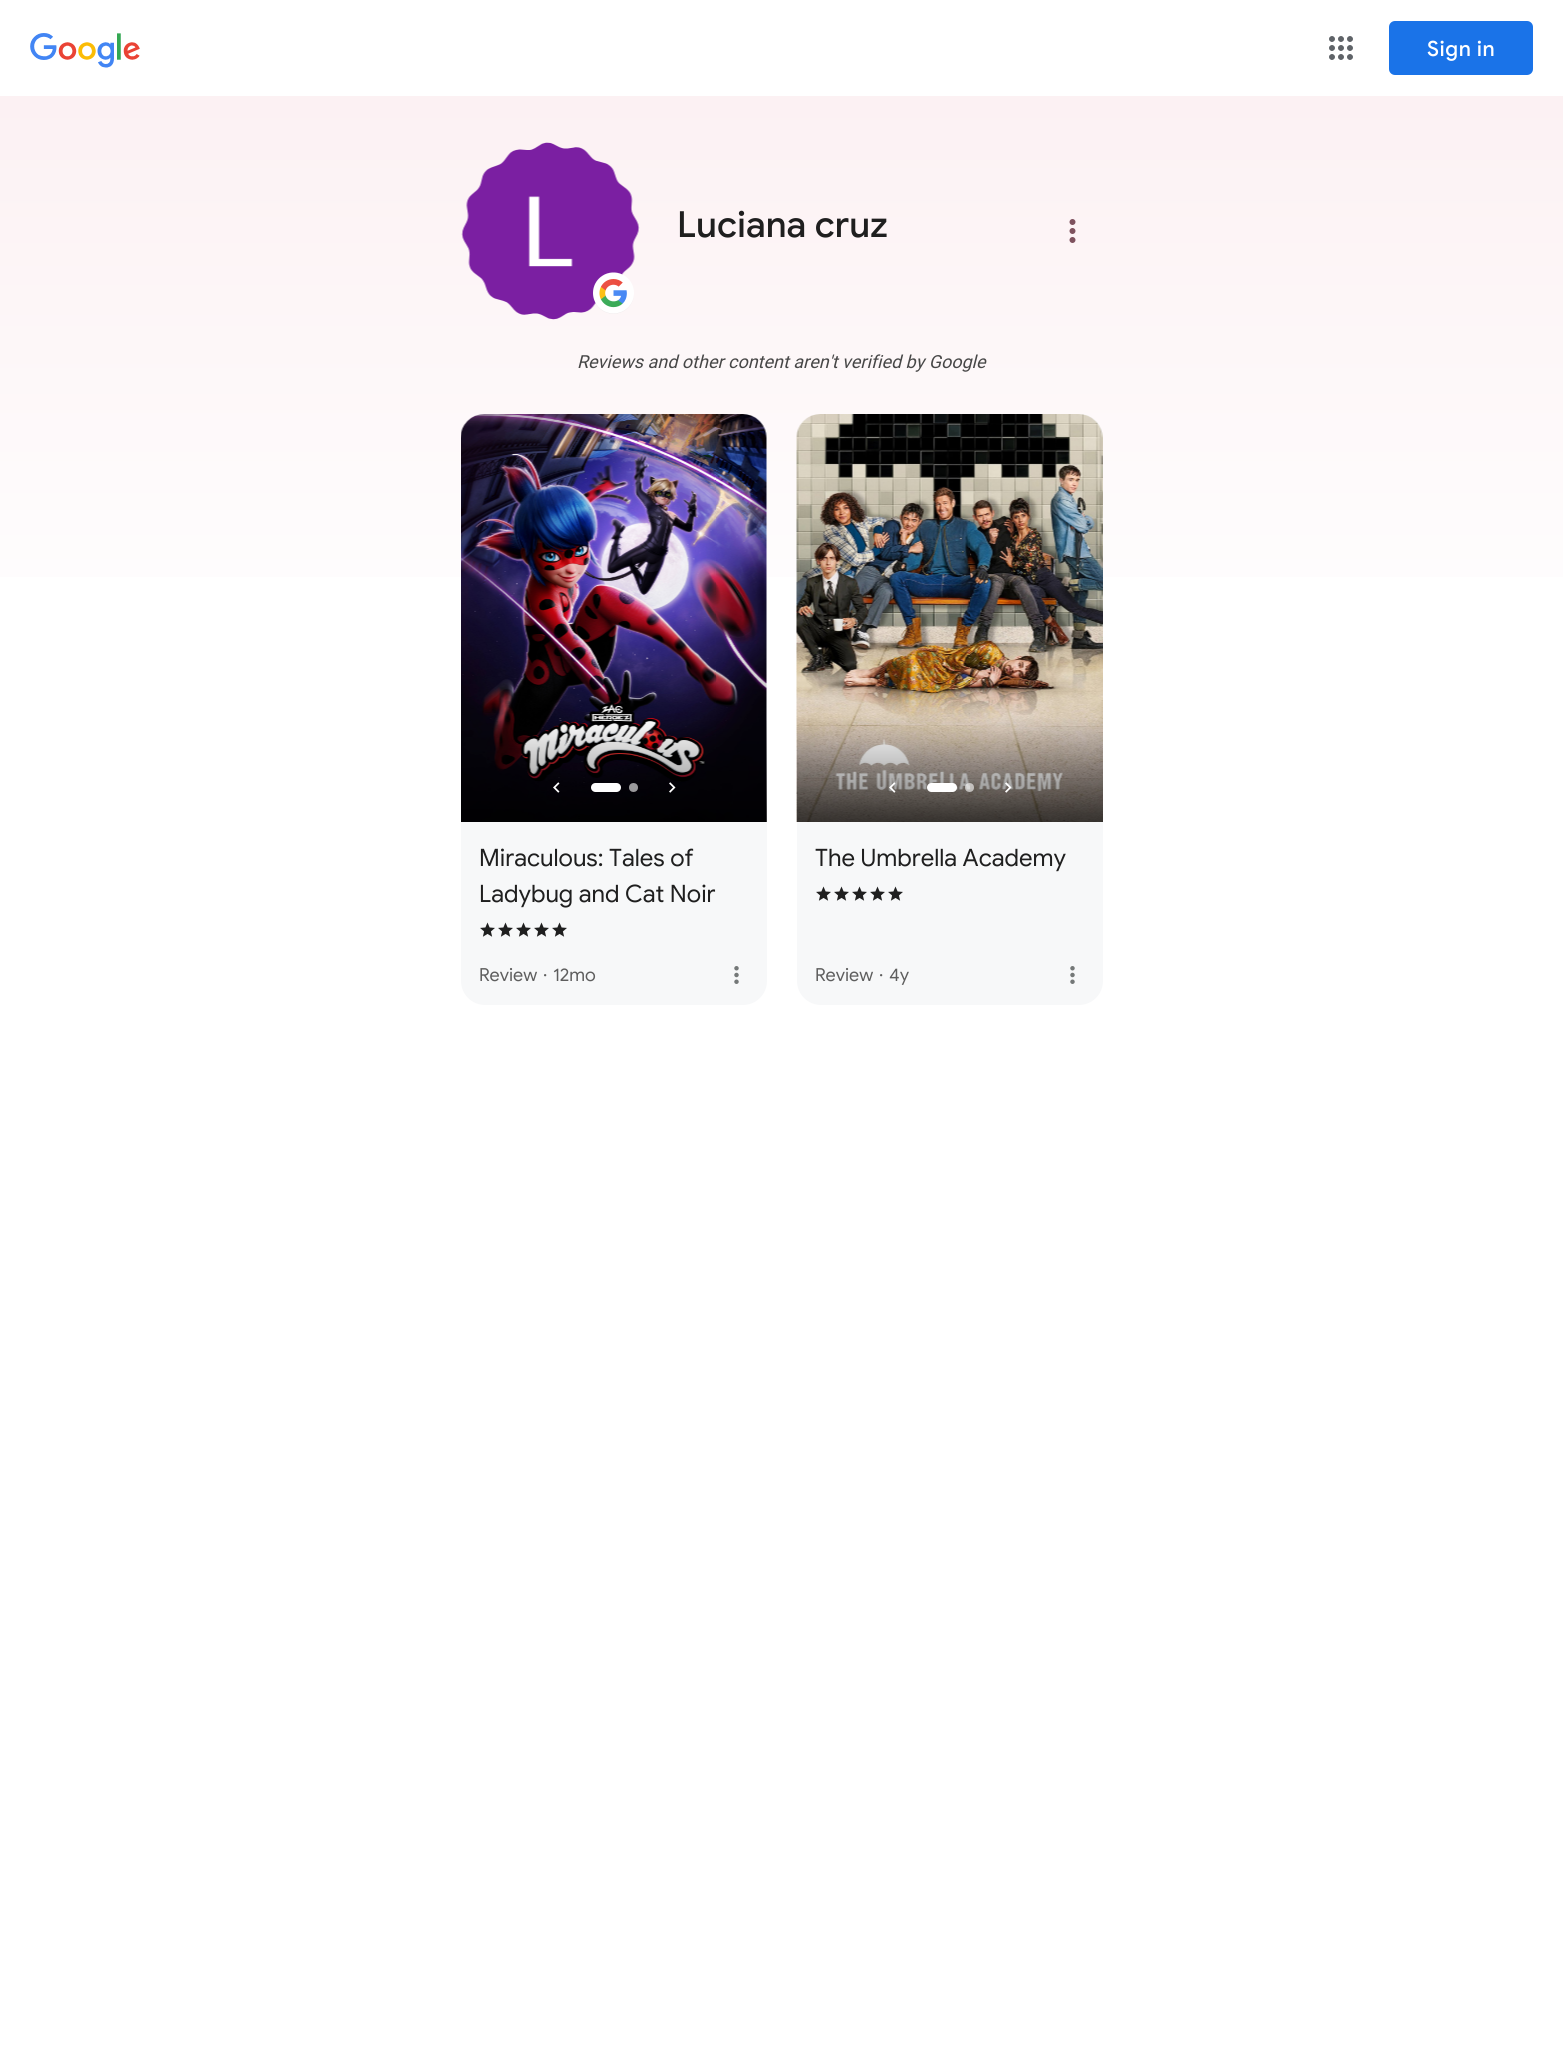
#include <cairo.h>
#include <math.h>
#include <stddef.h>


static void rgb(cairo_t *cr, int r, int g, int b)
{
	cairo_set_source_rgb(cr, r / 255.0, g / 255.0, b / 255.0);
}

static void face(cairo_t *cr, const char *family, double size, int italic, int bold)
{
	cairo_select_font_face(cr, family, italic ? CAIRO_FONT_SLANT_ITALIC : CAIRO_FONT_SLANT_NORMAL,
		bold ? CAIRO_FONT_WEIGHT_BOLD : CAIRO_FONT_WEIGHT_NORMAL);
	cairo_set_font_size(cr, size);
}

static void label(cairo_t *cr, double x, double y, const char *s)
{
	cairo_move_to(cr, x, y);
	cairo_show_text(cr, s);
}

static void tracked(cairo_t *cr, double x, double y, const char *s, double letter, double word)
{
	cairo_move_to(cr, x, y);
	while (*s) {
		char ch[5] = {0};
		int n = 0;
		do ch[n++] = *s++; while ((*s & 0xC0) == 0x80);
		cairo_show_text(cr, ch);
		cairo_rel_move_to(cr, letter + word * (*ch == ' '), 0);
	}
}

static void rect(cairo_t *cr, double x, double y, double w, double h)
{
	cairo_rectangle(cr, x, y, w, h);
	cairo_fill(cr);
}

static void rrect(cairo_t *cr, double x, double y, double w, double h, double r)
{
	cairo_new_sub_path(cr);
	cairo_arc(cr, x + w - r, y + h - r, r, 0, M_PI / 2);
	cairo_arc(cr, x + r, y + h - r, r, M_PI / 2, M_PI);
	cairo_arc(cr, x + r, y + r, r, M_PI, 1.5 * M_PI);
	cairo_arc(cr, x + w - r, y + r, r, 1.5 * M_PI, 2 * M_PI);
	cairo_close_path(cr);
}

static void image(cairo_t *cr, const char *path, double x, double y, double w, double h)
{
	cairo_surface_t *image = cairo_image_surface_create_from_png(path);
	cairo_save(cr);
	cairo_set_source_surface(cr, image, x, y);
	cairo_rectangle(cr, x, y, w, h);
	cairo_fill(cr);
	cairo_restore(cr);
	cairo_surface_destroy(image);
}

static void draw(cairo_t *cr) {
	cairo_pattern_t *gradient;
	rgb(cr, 255, 255, 255);
	cairo_paint(cr);
	image(cr, "image0.png", 30, 33, 110, 35);
	image(cr, "image1.png", 1329, 36, 24, 24);
	rgb(cr, 26, 115, 232);
	rrect(cr, 1389, 21, 144, 54, 6);
	cairo_fill(cr);
	face(cr, "Google Sans Medium", 21, 0, 0);
	rgb(cr, 255, 255, 255);
	tracked(cr, 1427, 56, "Sign in", 0.5, 0);
	gradient = cairo_pattern_create_linear(782, 96, 782, 681);
	cairo_pattern_add_color_stop_rgba(gradient, 0, 0.988, 0.945, 0.953, 1);
	cairo_pattern_add_color_stop_rgba(gradient, 1, 1, 1, 1, 1);
	cairo_set_source(cr, gradient);
	cairo_pattern_destroy(gradient);
	rect(cr, 0, 96, 1563, 481);
	image(cr, "image2.png", 461, 142, 179, 178);
	image(cr, "image3.png", 593, 272, 41, 42);
	face(cr, "Google Sans Medium", 36, 0, 0);
	rgb(cr, 31, 31, 31);
	label(cr, 677, 237, "Luciana cruz");
	image(cr, "image4.png", 1069, 219, 7, 24);
	face(cr, "Roboto", 18, 1, 0);
	rgb(cr, 71, 71, 71);
	label(cr, 577, 368, "Reviews and other content aren't verified by Google");
	rgb(cr, 247, 248, 249);
	rrect(cr, 461, 414, 306, 591, 24);
	cairo_fill(cr);
	image(cr, "image5.png", 461, 414, 306, 408);
	gradient = cairo_pattern_create_linear(614, 717, 614, 822);
	cairo_pattern_add_color_stop_rgba(gradient, 0, 0, 0, 0, 0);
	cairo_pattern_add_color_stop_rgba(gradient, 0.75, 0, 0, 0, 0.4);
	cairo_pattern_add_color_stop_rgba(gradient, 1, 0, 0, 0, 0.6);
	cairo_set_source(cr, gradient);
	cairo_pattern_destroy(gradient);
	rect(cr, 461, 721, 306, 101);
	image(cr, "image6.png", 553, 782, 7, 11);
	rgb(cr, 255, 255, 255);
	rrect(cr, 591, 783, 30, 9, 4.5);
	cairo_fill(cr);
	cairo_set_source_rgba(cr, 1, 1, 1, 0.6);
	cairo_arc(cr, 633.5, 787.5, 4.5, 0, 2 * M_PI);
	cairo_fill(cr);
	image(cr, "image7.png", 669, 782, 7, 11);
	face(cr, "Google Sans", 24, 0, 0);
	rgb(cr, 31, 31, 31);
	label(cr, 479, 866, "Miraculous: Tales of");
	label(cr, 479, 902, "Ladybug and Cat Noir");
	image(cr, "image8.png", 480, 922, 15, 15);
	image(cr, "image8.png", 498, 922, 15, 15);
	image(cr, "image8.png", 516, 922, 15, 15);
	image(cr, "image8.png", 534, 922, 15, 15);
	image(cr, "image8.png", 552, 922, 15, 15);
	face(cr, "Google Sans", 18, 0, 0);
	rgb(cr, 94, 94, 94);
	label(cr, 479, 981, "Review");
	label(cr, 543, 981, "·");
	label(cr, 553, 981, "12mo");
	image(cr, "image9.png", 734, 966, 5, 18);
	rgb(cr, 247, 248, 249);
	rrect(cr, 797, 414, 306, 591, 24);
	cairo_fill(cr);
	image(cr, "image10.png", 796, 414, 307, 408);
	image(cr, "image11.png", 889, 782, 7, 11);
	rgb(cr, 255, 255, 255);
	rrect(cr, 927, 783, 30, 9, 4.5);
	cairo_fill(cr);
	cairo_set_source_rgba(cr, 1, 1, 1, 0.6);
	cairo_arc(cr, 969.5, 787.5, 4.5, 0, 2 * M_PI);
	cairo_fill(cr);
	image(cr, "image12.png", 1005, 782, 7, 11);
	face(cr, "Google Sans", 24, 0, 0);
	rgb(cr, 31, 31, 31);
	label(cr, 815, 866, "The Umbrella Academy");
	image(cr, "image8.png", 816, 886, 15, 15);
	image(cr, "image8.png", 834, 886, 15, 15);
	image(cr, "image8.png", 852, 886, 15, 15);
	image(cr, "image8.png", 870, 886, 15, 15);
	image(cr, "image8.png", 888, 886, 15, 15);
	face(cr, "Google Sans", 18, 0, 0);
	rgb(cr, 94, 94, 94);
	label(cr, 815, 981, "Review");
	label(cr, 879, 981, "·");
	label(cr, 889, 981, "4y");
	image(cr, "image9.png", 1070, 966, 5, 18);
}

int main(void) {
	cairo_surface_t *surface = cairo_image_surface_create(CAIRO_FORMAT_RGB24, 1563, 2052);
	cairo_t *cr = cairo_create(surface);
	cairo_font_options_t *options = cairo_font_options_create();
	cairo_font_options_set_hint_metrics(options, CAIRO_HINT_METRICS_OFF);
	cairo_font_options_set_hint_style(options, CAIRO_HINT_STYLE_NONE);
	cairo_set_font_options(cr, options);
	cairo_set_miter_limit(cr, 4);
	draw(cr);
	cairo_surface_write_to_png(surface, "render.png");
	cairo_font_options_destroy(options);
	cairo_destroy(cr);
	cairo_surface_destroy(surface);
	return 0;
}
